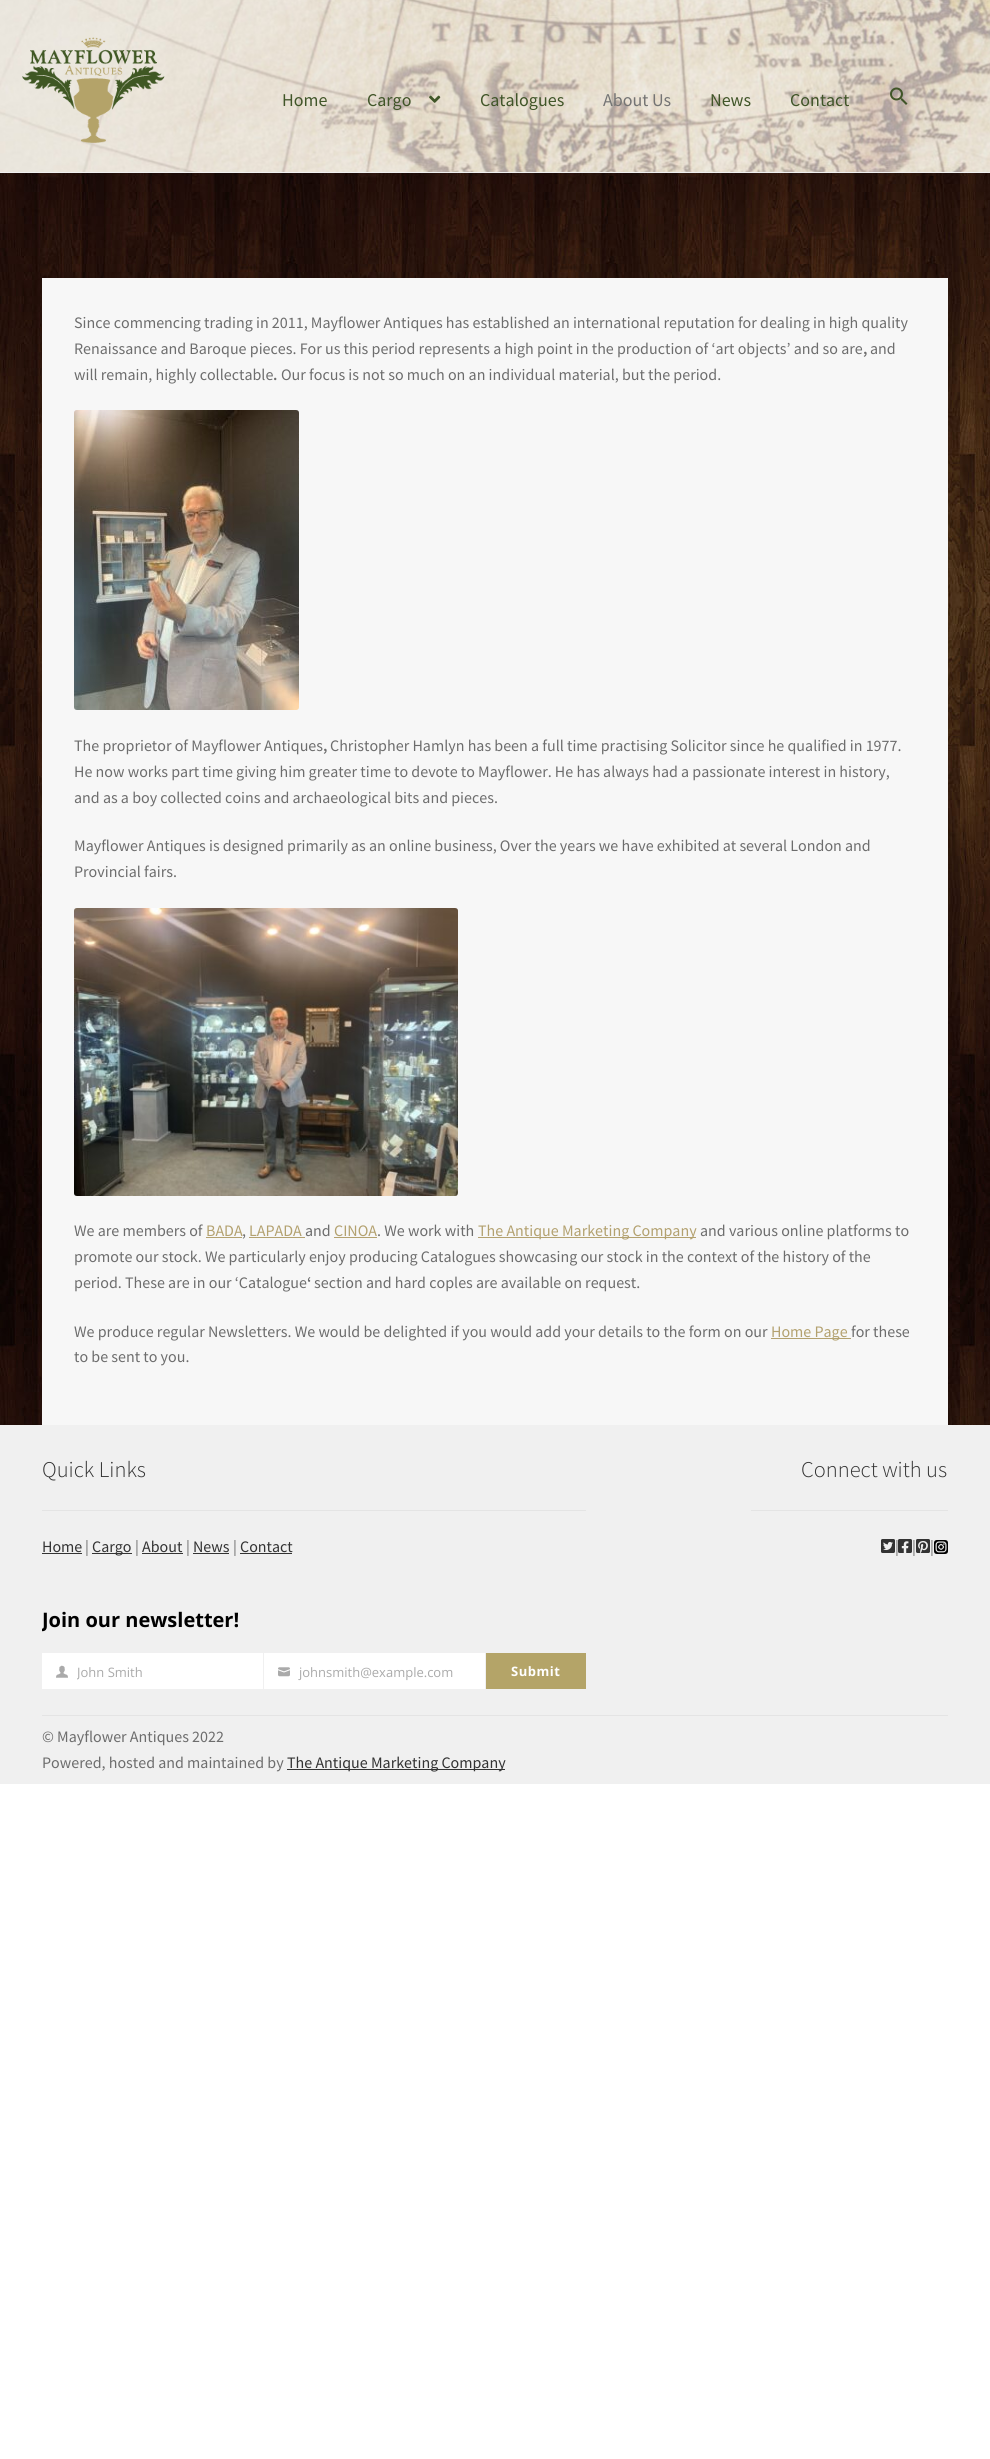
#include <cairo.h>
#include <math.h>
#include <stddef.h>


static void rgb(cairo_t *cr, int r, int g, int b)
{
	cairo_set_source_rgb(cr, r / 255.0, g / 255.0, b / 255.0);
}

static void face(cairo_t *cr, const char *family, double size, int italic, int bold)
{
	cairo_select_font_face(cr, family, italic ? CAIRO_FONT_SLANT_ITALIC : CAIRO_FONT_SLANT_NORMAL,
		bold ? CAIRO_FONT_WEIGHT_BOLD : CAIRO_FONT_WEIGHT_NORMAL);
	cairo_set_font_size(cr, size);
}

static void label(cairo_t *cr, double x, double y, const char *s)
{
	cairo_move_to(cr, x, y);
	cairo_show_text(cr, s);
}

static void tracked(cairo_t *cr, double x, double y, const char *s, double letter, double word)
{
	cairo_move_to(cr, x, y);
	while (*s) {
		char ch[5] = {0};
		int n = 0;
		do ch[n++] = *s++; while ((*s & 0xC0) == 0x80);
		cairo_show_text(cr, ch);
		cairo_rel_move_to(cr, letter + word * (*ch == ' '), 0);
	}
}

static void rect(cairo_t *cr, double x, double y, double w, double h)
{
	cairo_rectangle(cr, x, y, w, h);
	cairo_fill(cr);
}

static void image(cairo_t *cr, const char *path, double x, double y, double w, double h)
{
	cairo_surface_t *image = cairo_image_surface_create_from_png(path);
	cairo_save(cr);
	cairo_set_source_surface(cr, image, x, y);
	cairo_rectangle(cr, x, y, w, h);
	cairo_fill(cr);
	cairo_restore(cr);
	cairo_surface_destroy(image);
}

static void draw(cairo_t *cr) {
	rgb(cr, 255, 255, 255);
	cairo_paint(cr);
	image(cr, "image0.png", 0, 173, 990, 1252);
	image(cr, "image1.png", 0, 0, 990, 172);
	rgb(cr, 240, 240, 240);
	rect(cr, 0, 172, 990, 1);
	image(cr, "image2.png", 22, 37, 143, 106);
	face(cr, "Source Sans Pro", 18, 0, 0);
	rgb(cr, 64, 85, 40);
	label(cr, 282, 106, "Home");
	label(cr, 367, 106, "Cargo");
	image(cr, "image3.png", 429, 95, 12, 8);
	label(cr, 480, 106, "Catalogues");
	rgb(cr, 116, 116, 116);
	label(cr, 603, 106, "About Us");
	rgb(cr, 64, 85, 40);
	label(cr, 710, 106, "News");
	label(cr, 790, 106, "Contact");
	image(cr, "image4.png", 890, 87, 18, 18);
	rgb(cr, 247, 247, 247);
	rect(cr, 42, 278, 906, 1147);
	face(cr, "Source Sans Pro", 16, 0, 0);
	rgb(cr, 109, 109, 109);
	label(cr, 74, 328, "Since commencing trading in 2011, Mayflower Antiques has established an international reputation for dealing in high quality");
	label(cr, 74, 354, "Renaissance and Baroque pieces. For us this period represents a high point in the production of ‘art objects’ and so are");
	face(cr, "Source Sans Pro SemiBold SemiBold", 16, 0, 0);
	label(cr, 863, 354, ",");
	face(cr, "Source Sans Pro", 16, 0, 0);
	label(cr, 870, 354, "and");
	label(cr, 74, 380, "will remain, highly collectable");
	face(cr, "Source Sans Pro SemiBold SemiBold", 16, 0, 0);
	label(cr, 273, 380, ".");
	face(cr, "Source Sans Pro", 16, 0, 0);
	label(cr, 281, 380, "Our focus is not so much on an individual material, but the period.");
	image(cr, "image5.png", 74, 410, 225, 300);
	label(cr, 74, 751, "The proprietor of Mayflower Antiques");
	face(cr, "Source Sans Pro SemiBold SemiBold", 16, 0, 0);
	label(cr, 323, 751, ",");
	face(cr, "Source Sans Pro", 16, 0, 0);
	label(cr, 330, 751, "Christopher Hamlyn has been a full time practising Solicitor since he qualified in 1977.");
	label(cr, 74, 777, "He now works part time giving him greater time to devote to Mayflower. He has always had a passionate interest in history,");
	label(cr, 74, 803, "and as a boy collected coins and archaeological bits and pieces.");
	label(cr, 74, 851, "Mayflower Antiques is designed primarily as an online business, Over the years we have exhibited at several London and");
	label(cr, 74, 877, "Provincial fairs.");
	image(cr, "image6.png", 74, 908, 384, 288);
	label(cr, 74, 1236, "We are members of");
	rgb(cr, 179, 161, 111);
	label(cr, 206, 1236, "BADA");
	rgb(cr, 109, 109, 109);
	label(cr, 242, 1236, ",");
	rgb(cr, 179, 161, 111);
	rect(cr, 206, 1237, 36, 1);
	rect(cr, 249, 1237, 56, 1);
	label(cr, 249, 1236, "LAPADA");
	rgb(cr, 109, 109, 109);
	label(cr, 305, 1236, "and");
	rgb(cr, 179, 161, 111);
	label(cr, 334, 1236, "CINOA");
	rect(cr, 334, 1237, 43, 1);
	rgb(cr, 109, 109, 109);
	label(cr, 377, 1236, ". We work with");
	rgb(cr, 179, 161, 111);
	rect(cr, 478, 1237, 218, 1);
	label(cr, 478, 1236, "The Antique Marketing Company");
	rgb(cr, 109, 109, 109);
	label(cr, 700, 1236, "and various online platforms to");
	label(cr, 74, 1262, "promote our stock. We particularly enjoy producing Catalogues showcasing our stock in the context of the history of the");
	label(cr, 74, 1288, "period. These are in our ‘Catalogue");
	face(cr, "Source Sans Pro SemiBold SemiBold", 16, 0, 0);
	label(cr, 307, 1288, "‘");
	face(cr, "Source Sans Pro", 16, 0, 0);
	label(cr, 314, 1288, "section and hard coples are available on request.");
	label(cr, 74, 1337, "We produce regular Newsletters. We would be delighted if you would add your details to the form on our");
	rgb(cr, 179, 161, 111);
	rect(cr, 771, 1338, 80, 1);
	label(cr, 771, 1337, "Home Page");
	rgb(cr, 109, 109, 109);
	label(cr, 851, 1337, "for these");
	label(cr, 74, 1362, "to be sent to you.");
	rgb(cr, 240, 240, 240);
	rect(cr, 0, 1425, 990, 359);
	rgb(cr, 228, 228, 228);
	rect(cr, 42, 1715, 906, 1);
	rect(cr, 42, 1510, 544, 1);
	face(cr, "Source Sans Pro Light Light", 22.5, 0, 0);
	rgb(cr, 51, 51, 51);
	label(cr, 42, 1477, "Quick Links");
	face(cr, "Source Sans Pro", 16, 0, 0);
	label(cr, 42, 1552, "Home");
	rect(cr, 42, 1553, 40, 1);
	rgb(cr, 109, 109, 109);
	label(cr, 85, 1552, "|");
	rgb(cr, 51, 51, 51);
	rect(cr, 92, 1553, 40, 1);
	label(cr, 92, 1552, "Cargo");
	rgb(cr, 109, 109, 109);
	label(cr, 135, 1552, "|");
	rgb(cr, 51, 51, 51);
	label(cr, 142, 1552, "About");
	rect(cr, 142, 1553, 41, 1);
	rgb(cr, 109, 109, 109);
	label(cr, 186, 1552, "|");
	rgb(cr, 51, 51, 51);
	label(cr, 193, 1552, "News");
	rect(cr, 193, 1553, 36, 1);
	rgb(cr, 109, 109, 109);
	label(cr, 233, 1552, "|");
	rgb(cr, 51, 51, 51);
	label(cr, 240, 1552, "Contact");
	rect(cr, 240, 1553, 52, 1);
	cairo_save(cr);
	cairo_rectangle(cr, 42, 1586, 544, 103);
	cairo_clip(cr);
	face(cr, "Open Sans", 20, 0, 1);
	rgb(cr, 0, 0, 0);
	label(cr, 42, 1627, "Join our newsletter!");
	cairo_restore(cr);
	rgb(cr, 255, 255, 255);
	rect(cr, 42, 1653, 221, 36);
	image(cr, "image7.png", 56, 1665, 12, 13);
	cairo_save(cr);
	cairo_rectangle(cr, 77, 1663, 176, 18);
	cairo_clip(cr);
	face(cr, "Open Sans", 13, 0, 0);
	rgb(cr, 170, 170, 170);
	label(cr, 77, 1677, "John Smith");
	cairo_restore(cr);
	rect(cr, 264, 1653, 221, 36);
	image(cr, "image8.png", 278, 1667, 12, 10);
	face(cr, "Open Sans", 13, 0, 0);
	rgb(cr, 170, 170, 170);
	label(cr, 299, 1677, "johnsmith@example.com");
	rgb(cr, 180, 164, 104);
	rect(cr, 486, 1653, 100, 36);
	face(cr, "Open Sans", 13, 0, 1);
	rgb(cr, 255, 255, 255);
	tracked(cr, 511, 1676, "Submit", 0.5, 0);
	rgb(cr, 228, 228, 228);
	rect(cr, 751, 1510, 197, 1);
	face(cr, "Source Sans Pro Light Light", 22.5, 0, 0);
	rgb(cr, 51, 51, 51);
	label(cr, 801, 1477, "Connect with us");
	image(cr, "image9.png", 881, 1539, 14, 14);
	face(cr, "Source Sans Pro", 16, 0, 0);
	rgb(cr, 109, 109, 109);
	label(cr, 895, 1552, "|");
	image(cr, "image10.png", 898, 1539, 14, 14);
	label(cr, 912, 1552, "|");
	image(cr, "image11.png", 916, 1539, 14, 14);
	label(cr, 930, 1552, "|");
	image(cr, "image12.png", 934, 1540, 14, 14);
	label(cr, 42, 1742, "© Mayflower Antiques 2022");
	label(cr, 42, 1768, "Powered, hosted and maintained by");
	rgb(cr, 51, 51, 51);
	rect(cr, 287, 1769, 218, 1);
	label(cr, 287, 1768, "The Antique Marketing Company");
}

int main(void) {
	cairo_surface_t *surface = cairo_image_surface_create(CAIRO_FORMAT_RGB24, 990, 2459);
	cairo_t *cr = cairo_create(surface);
	cairo_font_options_t *options = cairo_font_options_create();
	cairo_font_options_set_hint_metrics(options, CAIRO_HINT_METRICS_OFF);
	cairo_font_options_set_hint_style(options, CAIRO_HINT_STYLE_NONE);
	cairo_set_font_options(cr, options);
	cairo_set_miter_limit(cr, 4);
	draw(cr);
	cairo_surface_write_to_png(surface, "render.png");
	cairo_font_options_destroy(options);
	cairo_destroy(cr);
	cairo_surface_destroy(surface);
	return 0;
}
